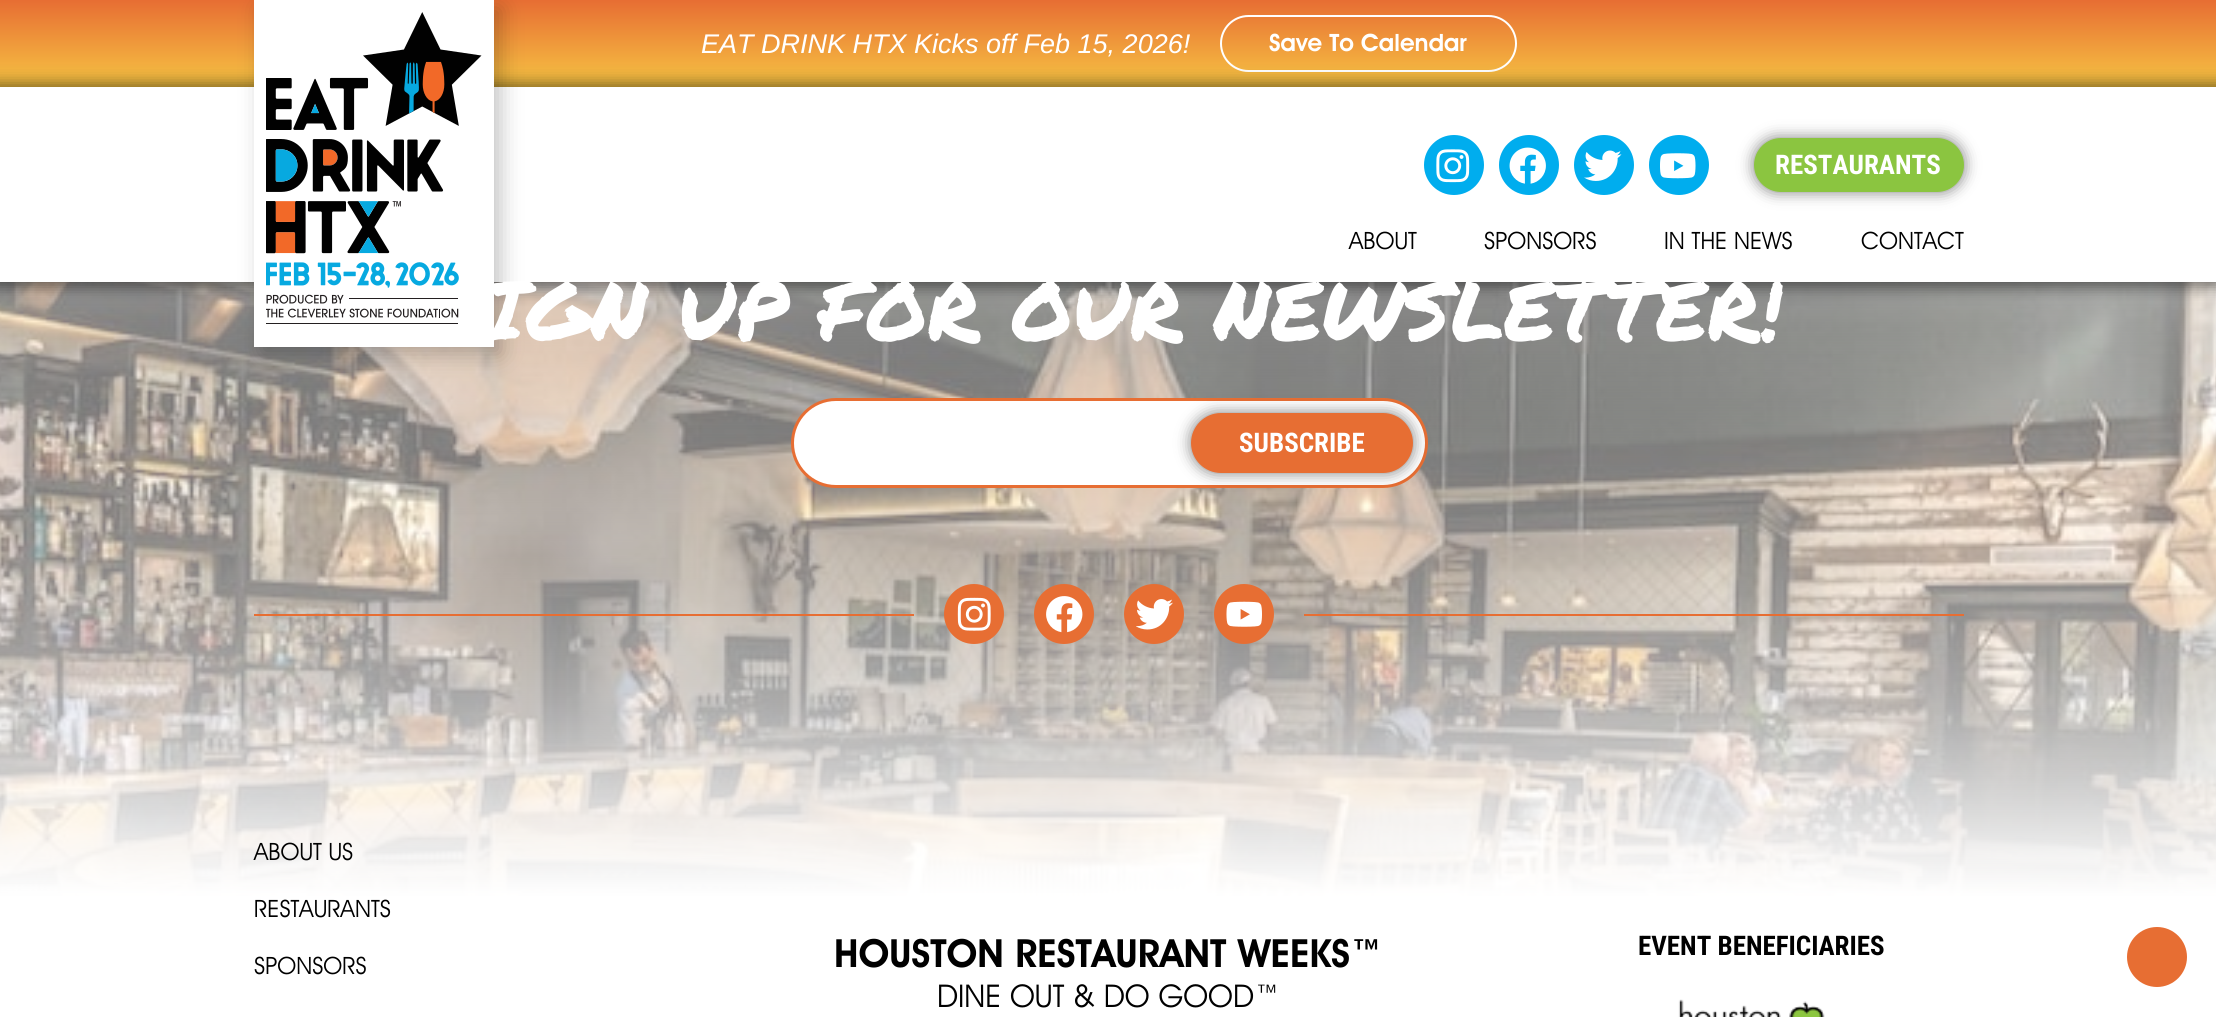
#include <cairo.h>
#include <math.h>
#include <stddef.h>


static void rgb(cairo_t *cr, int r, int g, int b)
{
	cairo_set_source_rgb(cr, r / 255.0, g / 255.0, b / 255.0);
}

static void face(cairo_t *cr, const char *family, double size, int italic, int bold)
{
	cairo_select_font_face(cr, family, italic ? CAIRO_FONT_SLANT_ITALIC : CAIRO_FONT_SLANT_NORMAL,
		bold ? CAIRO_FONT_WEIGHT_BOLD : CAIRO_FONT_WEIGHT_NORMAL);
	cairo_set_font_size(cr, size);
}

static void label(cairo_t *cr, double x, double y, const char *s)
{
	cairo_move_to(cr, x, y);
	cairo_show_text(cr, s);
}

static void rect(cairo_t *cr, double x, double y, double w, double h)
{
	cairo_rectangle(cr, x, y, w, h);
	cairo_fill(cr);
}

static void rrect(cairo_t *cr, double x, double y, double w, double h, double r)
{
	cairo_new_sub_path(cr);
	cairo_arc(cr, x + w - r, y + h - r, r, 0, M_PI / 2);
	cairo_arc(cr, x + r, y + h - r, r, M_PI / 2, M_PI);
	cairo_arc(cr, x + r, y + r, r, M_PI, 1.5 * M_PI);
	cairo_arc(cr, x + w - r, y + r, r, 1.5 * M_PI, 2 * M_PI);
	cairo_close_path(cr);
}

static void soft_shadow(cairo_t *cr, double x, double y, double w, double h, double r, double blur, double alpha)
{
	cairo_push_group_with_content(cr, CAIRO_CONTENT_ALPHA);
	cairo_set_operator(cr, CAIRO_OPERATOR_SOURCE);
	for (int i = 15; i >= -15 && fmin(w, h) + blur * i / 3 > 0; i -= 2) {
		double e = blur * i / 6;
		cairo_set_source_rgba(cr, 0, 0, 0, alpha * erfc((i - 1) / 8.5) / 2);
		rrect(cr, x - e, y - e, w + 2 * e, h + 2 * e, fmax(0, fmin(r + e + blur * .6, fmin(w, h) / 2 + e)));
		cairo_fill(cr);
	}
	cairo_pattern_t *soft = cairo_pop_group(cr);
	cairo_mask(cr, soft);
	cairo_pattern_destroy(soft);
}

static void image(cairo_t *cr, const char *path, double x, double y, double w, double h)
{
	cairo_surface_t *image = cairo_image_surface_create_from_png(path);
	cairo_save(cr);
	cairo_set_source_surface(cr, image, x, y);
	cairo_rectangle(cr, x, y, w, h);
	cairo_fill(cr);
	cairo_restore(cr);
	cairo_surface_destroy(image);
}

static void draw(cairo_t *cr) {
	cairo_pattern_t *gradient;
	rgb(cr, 255, 255, 255);
	cairo_paint(cr);
	gradient = cairo_pattern_create_linear(1109, 0, 1109, 87);
	cairo_pattern_add_color_stop_rgba(gradient, 0, 0.906, 0.431, 0.2, 1);
	cairo_pattern_add_color_stop_rgba(gradient, 1, 0.969, 0.769, 0.263, 1);
	cairo_set_source(cr, gradient);
	cairo_pattern_destroy(gradient);
	rect(cr, 0, 0, 2216, 87);
	rrect(cr, 1221, 16, 295, 55, 27.5);
	rgb(cr, 255, 255, 255);
	cairo_stroke(cr);
	image(cr, "image5.png", 0, 282, 2216, 735);
	rgb(cr, 0, 0, 0);
	soft_shadow(cr, -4, 83, 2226, 204, 0, 7.5, 0.5);
	rgb(cr, 255, 255, 255);
	rect(cr, 0, 87, 2216, 195);
	rgb(cr, 0, 0, 0);
	soft_shadow(cr, 261, 8, 240, 346, 0, 11, 0.23);
	rgb(cr, 255, 255, 255);
	rect(cr, 254, 0, 240, 347);
	face(cr, "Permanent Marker", 82.5, 0, 0);
	label(cr, 483, 341, "IGN UP FOR OUR NEWSLETTER!");
	image(cr, "image0.png", 266, 12, 216, 312);
	face(cr, "Liberation Sans", 27, 1, 0);
	label(cr, 701, 53, "EAT DRINK HTX Kicks off Feb 15, 2026!");
	face(cr, "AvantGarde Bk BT", 24, 0, 1);
	label(cr, 1269, 51, "Save To Calendar");
	rgb(cr, 0, 173, 238);
	cairo_new_path(cr);
	cairo_arc(cr, 1454, 165, 30, 0, 2 * M_PI);
	cairo_fill(cr);
	image(cr, "image1.png", 1436, 149, 34, 34);
	cairo_arc(cr, 1529, 165, 30, 0, 2 * M_PI);
	cairo_fill(cr);
	image(cr, "image2.png", 1509, 147, 37, 37);
	cairo_arc(cr, 1604, 165, 30, 0, 2 * M_PI);
	cairo_fill(cr);
	image(cr, "image3.png", 1584, 150, 38, 31);
	cairo_arc(cr, 1679, 165, 30, 0, 2 * M_PI);
	cairo_fill(cr);
	image(cr, "image4.png", 1660, 153, 36, 26);
	rgb(cr, 0, 0, 0);
	soft_shadow(cr, 1754, 138, 210, 54, 27, 7.5, 0.5);
	rgb(cr, 139, 197, 64);
	rrect(cr, 1754, 138, 210, 54, 27);
	cairo_fill(cr);
	face(cr, "Roboto Condensed", 27, 0, 1);
	rgb(cr, 255, 255, 255);
	label(cr, 1775, 174, "RESTAURANTS");
	face(cr, "AvantGarde Bk BT", 24, 0, 0);
	rgb(cr, 0, 0, 0);
	label(cr, 1349, 249, "ABOUT");
	label(cr, 1484, 249, "SPONSORS");
	label(cr, 1664, 249, "IN THE NEWS");
	label(cr, 1861, 249, "CONTACT");
	rgb(cr, 255, 255, 255);
	rrect(cr, 792.5, 399.5, 634, 87, 43.5);
	cairo_fill_preserve(cr);
	rgb(cr, 231, 110, 51);
	cairo_set_line_width(cr, 3);
	cairo_stroke(cr);
	rgb(cr, 0, 0, 0);
	soft_shadow(cr, 1191, 413, 222, 60, 30, 7.5, 0.5);
	rgb(cr, 231, 110, 51);
	rrect(cr, 1191, 413, 222, 60, 30);
	cairo_fill(cr);
	face(cr, "Roboto Condensed", 27, 0, 1);
	rgb(cr, 255, 255, 255);
	label(cr, 1239, 452, "SUBSCRIBE");
	rgb(cr, 231, 110, 51);
	rect(cr, 254, 614, 660, 2);
	cairo_new_path(cr);
	cairo_arc(cr, 974, 614, 30, 0, 2 * M_PI);
	cairo_fill(cr);
	image(cr, "image6.png", 957, 597, 34, 34);
	cairo_arc(cr, 1064, 614, 30, 0, 2 * M_PI);
	cairo_fill(cr);
	image(cr, "image7.png", 1046, 596, 37, 37);
	cairo_arc(cr, 1154, 614, 30, 0, 2 * M_PI);
	cairo_fill(cr);
	image(cr, "image8.png", 1136, 599, 37, 31);
	cairo_arc(cr, 1244, 614, 30, 0, 2 * M_PI);
	cairo_fill(cr);
	image(cr, "image9.png", 1226, 601, 36, 26);
	rect(cr, 1304, 614, 660, 2);
	face(cr, "AvantGarde Bk BT", 24, 0, 0);
	rgb(cr, 0, 0, 0);
	label(cr, 254, 860, "ABOUT US");
	label(cr, 254, 917, "RESTAURANTS");
	label(cr, 254, 974, "SPONSORS");
	face(cr, "AvantGarde Bk BT", 39, 0, 1);
	label(cr, 834, 967, "HOUSTON RESTAURANT WEEKS™");
	face(cr, "AvantGarde Bk BT", 31.5, 0, 0);
	label(cr, 937, 1007, "DINE OUT & DO GOOD™");
	face(cr, "Roboto Condensed", 27, 0, 1);
	label(cr, 1638, 955, "EVENT BENEFICIARIES");
	image(cr, "image10.png", 1678, 999, 147, 18);
	rgb(cr, 231, 110, 51);
	cairo_arc(cr, 2157, 957, 30, 0, 2 * M_PI);
	cairo_fill(cr);
}

int main(void) {
	cairo_surface_t *surface = cairo_image_surface_create(CAIRO_FORMAT_RGB24, 2216, 1017);
	cairo_t *cr = cairo_create(surface);
	cairo_font_options_t *options = cairo_font_options_create();
	cairo_font_options_set_hint_metrics(options, CAIRO_HINT_METRICS_OFF);
	cairo_font_options_set_hint_style(options, CAIRO_HINT_STYLE_NONE);
	cairo_set_font_options(cr, options);
	cairo_set_miter_limit(cr, 4);
	draw(cr);
	cairo_surface_write_to_png(surface, "render.png");
	cairo_font_options_destroy(options);
	cairo_destroy(cr);
	cairo_surface_destroy(surface);
	return 0;
}
